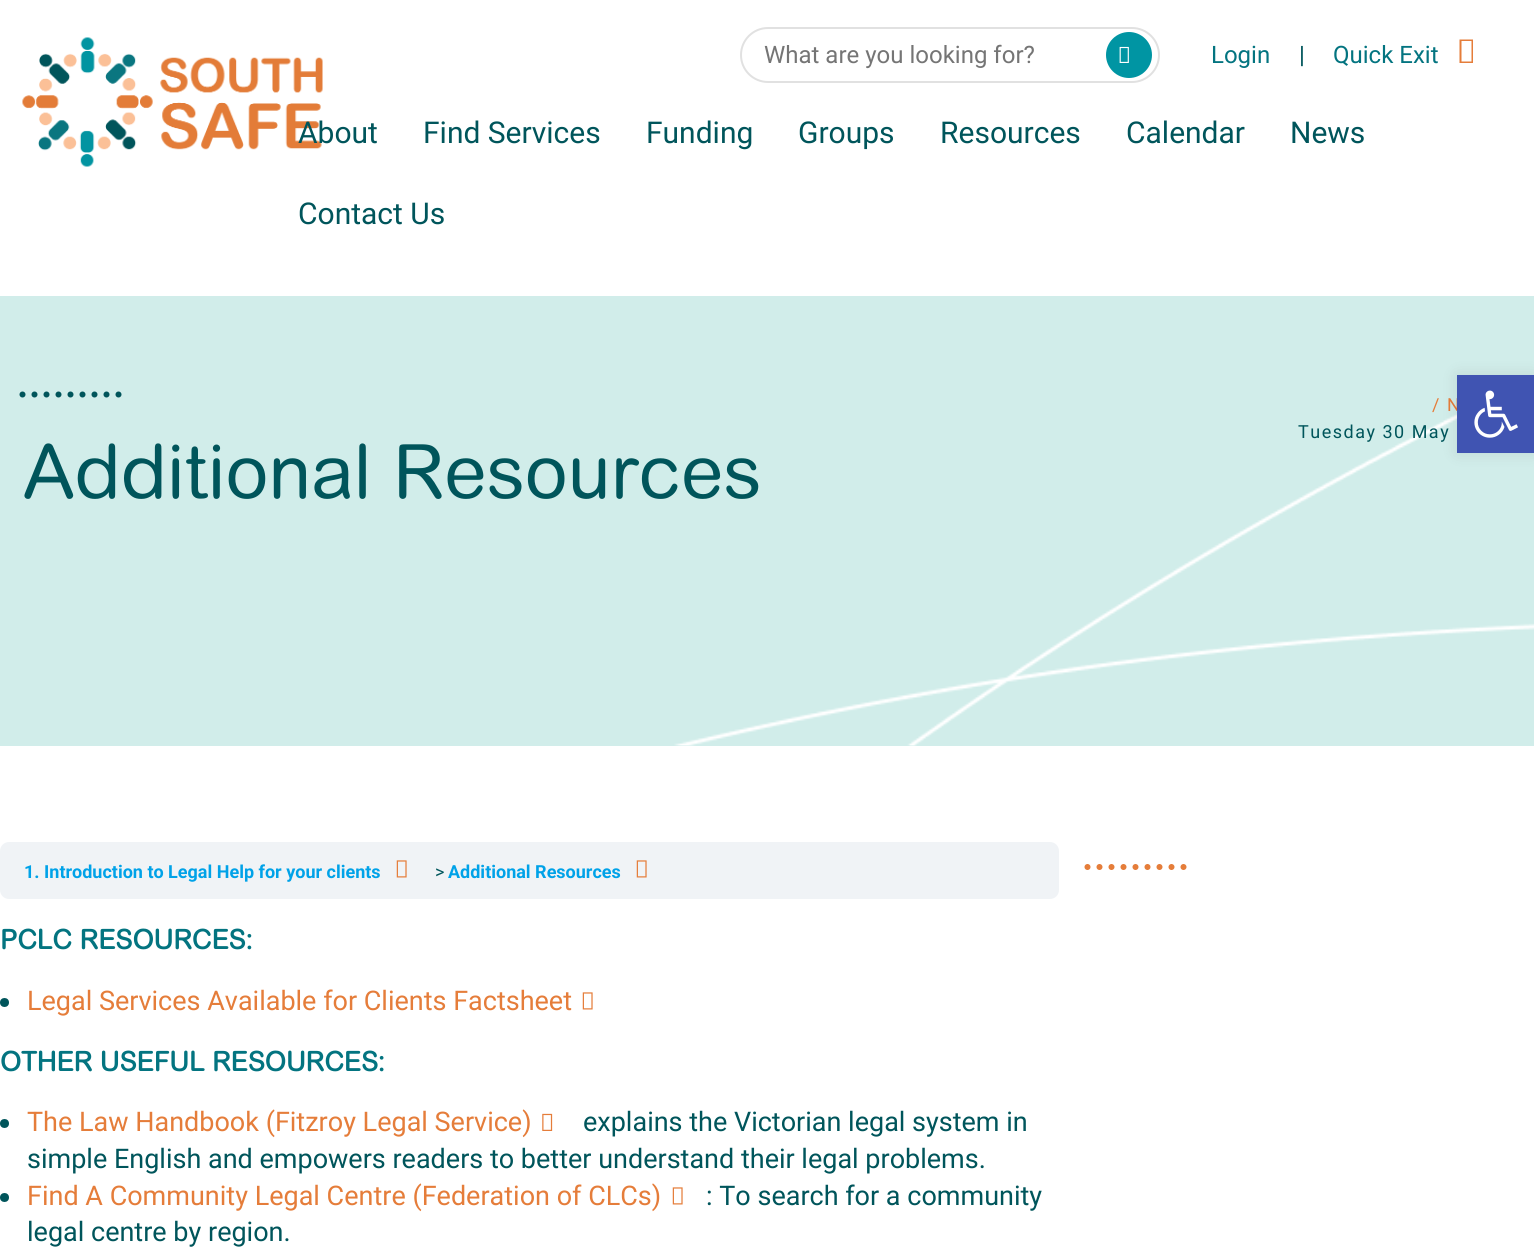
#include <cairo.h>
#include <math.h>
#include <stddef.h>


static void rgb(cairo_t *cr, int r, int g, int b)
{
	cairo_set_source_rgb(cr, r / 255.0, g / 255.0, b / 255.0);
}

static void face(cairo_t *cr, const char *family, double size, int italic, int bold)
{
	cairo_select_font_face(cr, family, italic ? CAIRO_FONT_SLANT_ITALIC : CAIRO_FONT_SLANT_NORMAL,
		bold ? CAIRO_FONT_WEIGHT_BOLD : CAIRO_FONT_WEIGHT_NORMAL);
	cairo_set_font_size(cr, size);
}

static void label(cairo_t *cr, double x, double y, const char *s)
{
	cairo_move_to(cr, x, y);
	cairo_show_text(cr, s);
}

static void tracked(cairo_t *cr, double x, double y, const char *s, double letter, double word)
{
	cairo_move_to(cr, x, y);
	while (*s) {
		char ch[5] = {0};
		int n = 0;
		do ch[n++] = *s++; while ((*s & 0xC0) == 0x80);
		cairo_show_text(cr, ch);
		cairo_rel_move_to(cr, letter + word * (*ch == ' '), 0);
	}
}

static void rect(cairo_t *cr, double x, double y, double w, double h)
{
	cairo_rectangle(cr, x, y, w, h);
	cairo_fill(cr);
}

static void rrect(cairo_t *cr, double x, double y, double w, double h, double r)
{
	cairo_new_sub_path(cr);
	cairo_arc(cr, x + w - r, y + h - r, r, 0, M_PI / 2);
	cairo_arc(cr, x + r, y + h - r, r, M_PI / 2, M_PI);
	cairo_arc(cr, x + r, y + r, r, M_PI, 1.5 * M_PI);
	cairo_arc(cr, x + w - r, y + r, r, 1.5 * M_PI, 2 * M_PI);
	cairo_close_path(cr);
}

static void soft_shadow(cairo_t *cr, double x, double y, double w, double h, double r, double blur, double alpha)
{
	cairo_push_group_with_content(cr, CAIRO_CONTENT_ALPHA);
	cairo_set_operator(cr, CAIRO_OPERATOR_SOURCE);
	for (int i = 15; i >= -15 && fmin(w, h) + blur * i / 3 > 0; i -= 2) {
		double e = blur * i / 6;
		cairo_set_source_rgba(cr, 0, 0, 0, alpha * erfc((i - 1) / 8.5) / 2);
		rrect(cr, x - e, y - e, w + 2 * e, h + 2 * e, fmax(0, fmin(r + e + blur * .6, fmin(w, h) / 2 + e)));
		cairo_fill(cr);
	}
	cairo_pattern_t *soft = cairo_pop_group(cr);
	cairo_mask(cr, soft);
	cairo_pattern_destroy(soft);
}

static void image(cairo_t *cr, const char *path, double x, double y, double w, double h)
{
	cairo_surface_t *image = cairo_image_surface_create_from_png(path);
	cairo_save(cr);
	cairo_set_source_surface(cr, image, x, y);
	cairo_rectangle(cr, x, y, w, h);
	cairo_fill(cr);
	cairo_restore(cr);
	cairo_surface_destroy(image);
}

static void draw(cairo_t *cr) {
	rgb(cr, 255, 255, 255);
	cairo_paint(cr);
	image(cr, "image0.png", 22, 37, 301, 130);
	rrect(cr, 741, 28, 418, 54, 27);
	rgb(cr, 225, 225, 225);
	cairo_stroke(cr);
	face(cr, "Roboto", 24, 0, 0);
	rgb(cr, 117, 117, 117);
	label(cr, 764, 63, "What are you looking for?");
	rgb(cr, 0, 149, 163);
	cairo_new_path(cr);
	cairo_arc(cr, 1129, 55, 23, 0, 2 * M_PI);
	cairo_fill(cr);
	image(cr, "image1.png", 1119, 46, 10, 17);
	rgb(cr, 3, 116, 128);
	label(cr, 1211, 63, "Login");
	rgb(cr, 0, 85, 91);
	label(cr, 1299, 63, "|");
	rgb(cr, 3, 116, 128);
	label(cr, 1333, 63, "Quick Exit");
	rgb(cr, 229, 125, 58);
	cairo_new_path(cr);
	cairo_move_to(cr, 1459.5, 63);
	cairo_line_to(cr, 1459.5, 39.5);
	cairo_line_to(cr, 1473, 39.5);
	cairo_line_to(cr, 1473, 63);
	cairo_close_path(cr);
	cairo_move_to(cr, 1461.5, 61.5);
	cairo_line_to(cr, 1471.5, 61.5);
	cairo_line_to(cr, 1471.5, 41);
	cairo_line_to(cr, 1461.5, 41);
	cairo_close_path(cr);
	cairo_fill(cr);
	face(cr, "Roboto", 30, 0, 0);
	rgb(cr, 0, 85, 91);
	label(cr, 298, 143, "About");
	label(cr, 423, 143, "Find Services");
	label(cr, 646, 143, "Funding");
	label(cr, 798, 143, "Groups");
	label(cr, 940, 143, "Resources");
	label(cr, 1126, 143, "Calendar");
	label(cr, 1290, 143, "News");
	label(cr, 298, 224, "Contact Us");
	rgb(cr, 209, 237, 234);
	rect(cr, 0, 296, 1534, 450);
	image(cr, "image2.png", 674, 413, 860, 333);
	face(cr, "Roboto", 18, 0, 0);
	rgb(cr, 229, 125, 58);
	tracked(cr, 1432, 411, "/ N", 1.5, 0);
	rgb(cr, 0, 85, 91);
	tracked(cr, 1298, 438, "Tuesday 30 May", 1.5, 0);
	cairo_new_path(cr);
	cairo_move_to(cr, 22.5, 394.5);
	cairo_line_to(cr, 123, 394.5);
	cairo_set_line_width(cr, 6);
	cairo_set_line_cap(cr, CAIRO_LINE_CAP_ROUND);
	cairo_set_dash(cr, (double[]){0, 12}, 2, 0);
	cairo_stroke(cr);
	face(cr, "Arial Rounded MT", 75, 0, 0);
	label(cr, 23, 498, "Additional Resources");
	rgb(cr, 240, 243, 246);
	rrect(cr, 0, 842, 1059, 57, 9);
	cairo_fill(cr);
	face(cr, "Roboto", 18, 0, 1);
	rgb(cr, 0, 162, 232);
	label(cr, 24, 878, "1. Introduction to Legal Help for your clients");
	image(cr, "image3.png", 396, 860, 11, 18);
	face(cr, "Roboto", 18, 0, 0);
	rgb(cr, 0, 85, 91);
	label(cr, 435, 878, ">");
	face(cr, "Roboto", 18, 0, 1);
	rgb(cr, 0, 162, 232);
	label(cr, 448, 878, "Additional Resources");
	image(cr, "image3.png", 636, 860, 11, 18);
	face(cr, "Arial Rounded MT", 27, 0, 1);
	rgb(cr, 3, 116, 128);
	label(cr, 0, 949, "PCLC RESOURCES:");
	rgb(cr, 0, 85, 91);
	cairo_new_path(cr);
	cairo_arc(cr, 4.5, 1002.5, 4.5, 0, 2 * M_PI);
	cairo_fill(cr);
	face(cr, "Roboto", 27, 0, 0);
	rgb(cr, 229, 125, 58);
	label(cr, 27, 1010, "Legal Services Available for Clients Factsheet");
	image(cr, "image4.png", 582, 992, 11, 18);
	face(cr, "Arial Rounded MT", 27, 0, 1);
	rgb(cr, 3, 116, 128);
	label(cr, 0, 1071, "OTHER USEFUL RESOURCES:");
	rgb(cr, 0, 85, 91);
	cairo_new_path(cr);
	cairo_arc(cr, 4.5, 1123.5, 4.5, 0, 2 * M_PI);
	cairo_fill(cr);
	face(cr, "Roboto", 27, 0, 0);
	rgb(cr, 229, 125, 58);
	label(cr, 27, 1131, "The Law Handbook (Fitzroy Legal Service)");
	image(cr, "image5.png", 542, 1113, 11, 18);
	rgb(cr, 0, 85, 91);
	label(cr, 583, 1131, "explains the Victorian legal system in");
	label(cr, 27, 1168, "simple English and empowers readers to better understand their legal problems.");
	cairo_new_path(cr);
	cairo_arc(cr, 4.5, 1197.5, 4.5, 0, 2 * M_PI);
	cairo_fill(cr);
	rgb(cr, 229, 125, 58);
	label(cr, 27, 1205, "Find A Community Legal Centre (Federation of CLCs)");
	image(cr, "image4.png", 672, 1187, 11, 18);
	rgb(cr, 0, 85, 91);
	label(cr, 706, 1205, ": To search for a community");
	label(cr, 27, 1241, "legal centre by region.");
	cairo_new_path(cr);
	cairo_move_to(cr, 1087.5, 867);
	cairo_line_to(cr, 1188, 867);
	rgb(cr, 229, 125, 58);
	cairo_stroke(cr);
	rgb(cr, 0, 0, 0);
	soft_shadow(cr, 1457, 375, 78, 78, 0, 7.5, 0.1);
	rgb(cr, 64, 84, 178);
	rect(cr, 1457, 375, 77, 78);
	image(cr, "image6.png", 1474, 390, 44, 48);
}

int main(void) {
	cairo_surface_t *surface = cairo_image_surface_create(CAIRO_FORMAT_RGB24, 1534, 1251);
	cairo_t *cr = cairo_create(surface);
	cairo_font_options_t *options = cairo_font_options_create();
	cairo_font_options_set_hint_metrics(options, CAIRO_HINT_METRICS_OFF);
	cairo_font_options_set_hint_style(options, CAIRO_HINT_STYLE_NONE);
	cairo_set_font_options(cr, options);
	cairo_set_miter_limit(cr, 4);
	draw(cr);
	cairo_surface_write_to_png(surface, "render.png");
	cairo_font_options_destroy(options);
	cairo_destroy(cr);
	cairo_surface_destroy(surface);
	return 0;
}
